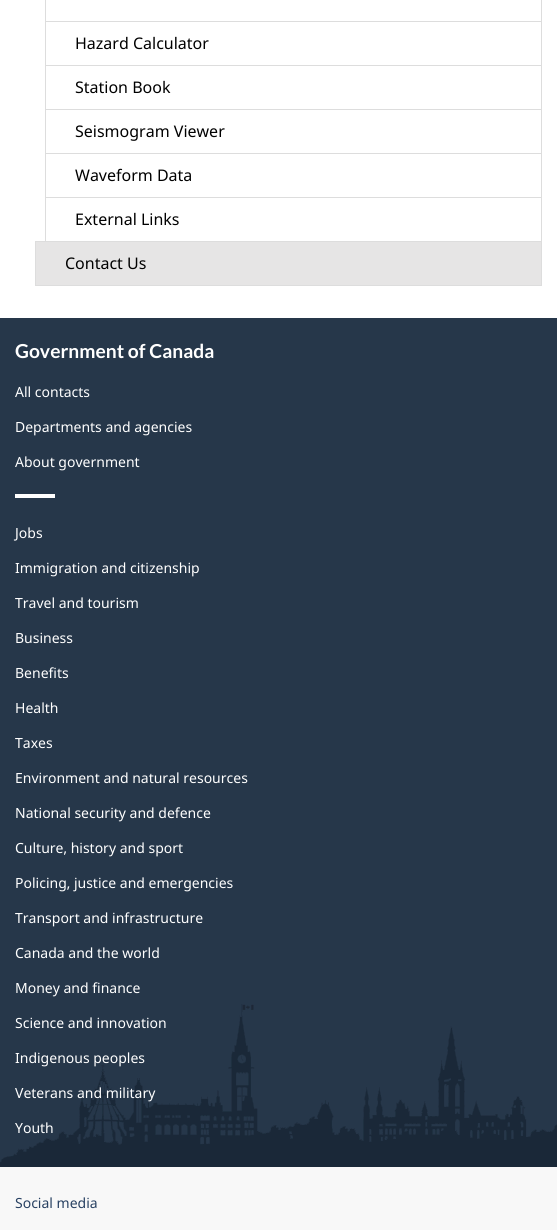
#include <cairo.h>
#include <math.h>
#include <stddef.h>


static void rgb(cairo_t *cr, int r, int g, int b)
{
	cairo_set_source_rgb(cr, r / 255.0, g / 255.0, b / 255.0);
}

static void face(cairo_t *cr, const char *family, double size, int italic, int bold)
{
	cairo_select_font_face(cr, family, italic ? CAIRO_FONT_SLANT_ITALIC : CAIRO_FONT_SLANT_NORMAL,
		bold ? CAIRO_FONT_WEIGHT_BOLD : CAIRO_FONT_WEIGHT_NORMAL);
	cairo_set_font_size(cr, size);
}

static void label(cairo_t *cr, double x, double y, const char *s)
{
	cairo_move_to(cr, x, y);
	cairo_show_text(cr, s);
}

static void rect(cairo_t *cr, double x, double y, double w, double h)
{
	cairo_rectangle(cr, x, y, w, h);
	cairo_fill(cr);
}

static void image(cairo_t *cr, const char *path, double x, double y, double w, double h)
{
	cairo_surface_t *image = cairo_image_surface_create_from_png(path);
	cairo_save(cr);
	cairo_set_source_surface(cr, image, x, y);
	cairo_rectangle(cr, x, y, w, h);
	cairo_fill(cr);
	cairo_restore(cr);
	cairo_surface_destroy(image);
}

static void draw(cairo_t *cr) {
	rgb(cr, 255, 255, 255);
	cairo_paint(cr);
	cairo_rectangle(cr, 45.5, -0.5, 496, 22);
	rgb(cr, 221, 221, 221);
	cairo_set_line_width(cr, 1);
	cairo_stroke(cr);
	cairo_rectangle(cr, 45.5, 21.5, 496, 44);
	cairo_stroke(cr);
	face(cr, "Noto Sans", 16, 0, 0);
	rgb(cr, 0, 0, 0);
	label(cr, 75, 49, "Hazard Calculator");
	cairo_rectangle(cr, 45.5, 65.5, 496, 44);
	rgb(cr, 221, 221, 221);
	cairo_stroke(cr);
	rgb(cr, 0, 0, 0);
	label(cr, 75, 93, "Station Book");
	cairo_rectangle(cr, 45.5, 109.5, 496, 44);
	rgb(cr, 221, 221, 221);
	cairo_stroke(cr);
	rgb(cr, 0, 0, 0);
	label(cr, 75, 137, "Seismogram Viewer");
	cairo_rectangle(cr, 45.5, 153.5, 496, 44);
	rgb(cr, 221, 221, 221);
	cairo_stroke(cr);
	rgb(cr, 0, 0, 0);
	label(cr, 75, 181, "Waveform Data");
	cairo_rectangle(cr, 45.5, 197.5, 496, 44);
	rgb(cr, 221, 221, 221);
	cairo_stroke(cr);
	rgb(cr, 0, 0, 0);
	label(cr, 75, 225, "External Links");
	rgb(cr, 230, 229, 229);
	cairo_rectangle(cr, 35.5, 241.5, 506, 44);
	cairo_fill_preserve(cr);
	rgb(cr, 221, 221, 221);
	cairo_stroke(cr);
	rgb(cr, 0, 0, 0);
	label(cr, 65, 269, "Contact Us");
	rgb(cr, 38, 55, 74);
	rect(cr, 0, 318, 557, 845);
	image(cr, "image0.png", 0, 1004, 557, 163);
	face(cr, "Lato", 19.25, 0, 1);
	rgb(cr, 255, 255, 255);
	label(cr, 15, 358, "Government of Canada");
	face(cr, "Noto Sans", 14, 0, 0);
	label(cr, 15, 397, "All contacts");
	label(cr, 15, 432, "Departments and agencies");
	label(cr, 15, 467, "About government");
	rect(cr, 15, 494, 40, 4);
	label(cr, 15, 538, "Jobs");
	label(cr, 15, 573, "Immigration and citizenship");
	label(cr, 15, 608, "Travel and tourism");
	label(cr, 15, 643, "Business");
	label(cr, 15, 678, "Benefits");
	label(cr, 15, 713, "Health");
	label(cr, 15, 748, "Taxes");
	label(cr, 15, 783, "Environment and natural resources");
	label(cr, 15, 818, "National security and defence");
	label(cr, 15, 853, "Culture, history and sport");
	label(cr, 15, 888, "Policing, justice and emergencies");
	label(cr, 15, 923, "Transport and infrastructure");
	label(cr, 15, 958, "Canada and the world");
	label(cr, 15, 993, "Money and finance");
	label(cr, 15, 1028, "Science and innovation");
	label(cr, 15, 1063, "Indigenous peoples");
	label(cr, 15, 1098, "Veterans and military");
	label(cr, 15, 1133, "Youth");
	rgb(cr, 248, 248, 248);
	rect(cr, 0, 1167, 557, 63);
	rgb(cr, 40, 65, 98);
	label(cr, 15, 1208, "Social media");
}

int main(void) {
	cairo_surface_t *surface = cairo_image_surface_create(CAIRO_FORMAT_RGB24, 557, 1230);
	cairo_t *cr = cairo_create(surface);
	cairo_font_options_t *options = cairo_font_options_create();
	cairo_font_options_set_hint_metrics(options, CAIRO_HINT_METRICS_OFF);
	cairo_font_options_set_hint_style(options, CAIRO_HINT_STYLE_NONE);
	cairo_set_font_options(cr, options);
	cairo_set_miter_limit(cr, 4);
	draw(cr);
	cairo_surface_write_to_png(surface, "render.png");
	cairo_font_options_destroy(options);
	cairo_destroy(cr);
	cairo_surface_destroy(surface);
	return 0;
}
